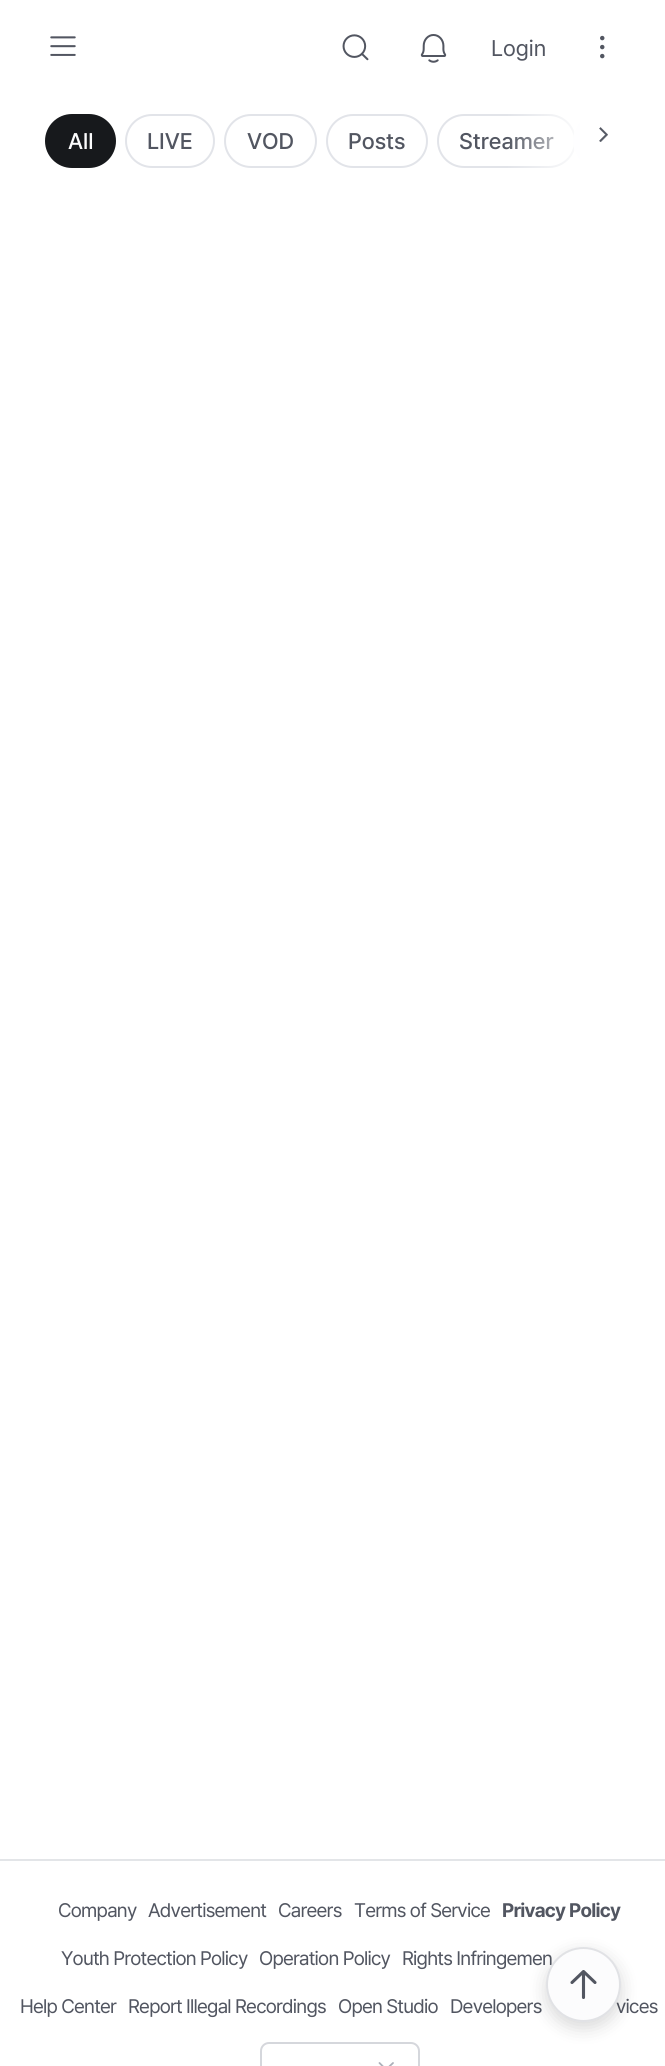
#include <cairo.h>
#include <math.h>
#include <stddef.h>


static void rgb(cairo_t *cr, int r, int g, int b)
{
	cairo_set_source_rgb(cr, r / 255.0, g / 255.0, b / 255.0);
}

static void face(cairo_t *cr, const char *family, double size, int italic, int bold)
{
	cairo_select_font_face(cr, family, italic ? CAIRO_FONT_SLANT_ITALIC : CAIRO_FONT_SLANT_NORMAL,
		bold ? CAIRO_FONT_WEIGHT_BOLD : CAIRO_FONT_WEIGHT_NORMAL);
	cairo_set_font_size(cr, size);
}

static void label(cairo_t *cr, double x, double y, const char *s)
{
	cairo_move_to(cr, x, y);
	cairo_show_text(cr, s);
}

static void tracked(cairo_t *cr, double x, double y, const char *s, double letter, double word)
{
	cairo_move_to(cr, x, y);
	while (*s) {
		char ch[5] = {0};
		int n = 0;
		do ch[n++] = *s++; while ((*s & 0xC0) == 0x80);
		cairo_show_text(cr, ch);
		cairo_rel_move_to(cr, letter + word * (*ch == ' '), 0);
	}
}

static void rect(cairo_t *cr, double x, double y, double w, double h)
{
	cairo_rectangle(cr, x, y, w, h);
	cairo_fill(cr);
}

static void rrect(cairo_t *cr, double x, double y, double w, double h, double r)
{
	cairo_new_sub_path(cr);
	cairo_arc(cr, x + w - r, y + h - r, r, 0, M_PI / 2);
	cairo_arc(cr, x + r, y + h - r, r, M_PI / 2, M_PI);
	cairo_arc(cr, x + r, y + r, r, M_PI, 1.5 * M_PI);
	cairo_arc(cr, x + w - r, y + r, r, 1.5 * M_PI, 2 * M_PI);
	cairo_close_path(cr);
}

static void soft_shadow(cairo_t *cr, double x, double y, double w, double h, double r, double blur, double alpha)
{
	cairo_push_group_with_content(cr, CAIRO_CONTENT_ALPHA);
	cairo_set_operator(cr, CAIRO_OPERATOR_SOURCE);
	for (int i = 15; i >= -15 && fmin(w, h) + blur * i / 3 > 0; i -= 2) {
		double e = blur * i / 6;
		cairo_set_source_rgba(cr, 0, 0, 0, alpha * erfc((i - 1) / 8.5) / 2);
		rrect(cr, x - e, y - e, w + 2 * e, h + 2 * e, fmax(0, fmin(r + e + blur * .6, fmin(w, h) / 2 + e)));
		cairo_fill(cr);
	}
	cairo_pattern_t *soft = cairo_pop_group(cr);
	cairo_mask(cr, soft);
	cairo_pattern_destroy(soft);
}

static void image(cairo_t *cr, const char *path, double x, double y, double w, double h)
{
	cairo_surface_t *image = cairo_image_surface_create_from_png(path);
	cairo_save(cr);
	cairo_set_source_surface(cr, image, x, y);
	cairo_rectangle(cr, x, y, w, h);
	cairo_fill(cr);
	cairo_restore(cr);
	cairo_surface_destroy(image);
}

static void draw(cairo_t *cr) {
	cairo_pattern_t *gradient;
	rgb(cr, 255, 255, 255);
	cairo_paint(cr);
	image(cr, "image0.png", 50, 36, 26, 20);
	image(cr, "image1.png", 342, 34, 27, 27);
	image(cr, "image2.png", 420, 34, 27, 29);
	face(cr, "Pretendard", 22.5, 0, 0);
	rgb(cr, 82, 86, 97);
	label(cr, 491, 56, "Login");
	image(cr, "image3.png", 600, 35, 5, 24);
	rgb(cr, 23, 25, 28);
	rrect(cr, 46, 115, 69, 52, 26);
	cairo_fill_preserve(cr);
	cairo_stroke(cr);
	face(cr, "Pretendard Medium", 22.5, 0, 0);
	rgb(cr, 252, 252, 253);
	label(cr, 68, 149, "All");
	rrect(cr, 126, 115, 88, 52, 26);
	rgb(cr, 226, 228, 233);
	cairo_stroke(cr);
	rgb(cr, 82, 86, 97);
	label(cr, 147, 149, "LIVE");
	rrect(cr, 225, 115, 91, 52, 26);
	rgb(cr, 226, 228, 233);
	cairo_stroke(cr);
	rgb(cr, 82, 86, 97);
	label(cr, 247, 149, "VOD");
	rrect(cr, 327, 115, 100, 52, 26);
	rgb(cr, 226, 228, 233);
	cairo_stroke(cr);
	rgb(cr, 82, 86, 97);
	label(cr, 348, 149, "Posts");
	rrect(cr, 438, 115, 137, 52, 26);
	rgb(cr, 226, 228, 233);
	cairo_stroke(cr);
	rgb(cr, 82, 86, 97);
	label(cr, 459, 149, "Streamer");
	rgb(cr, 252, 252, 253);
	cairo_new_path(cr);
	cairo_arc(cr, 603, 141, 30, 0, 2 * M_PI);
	cairo_fill(cr);
	gradient = cairo_pattern_create_linear(506, 141, 633, 141);
	cairo_pattern_add_color_stop_rgba(gradient, 0, 1, 1, 1, 0);
	cairo_pattern_add_color_stop_rgba(gradient, 0.7, 1, 1, 1, 1);
	cairo_set_source(cr, gradient);
	cairo_pattern_destroy(gradient);
	rect(cr, 508, 111, 125, 60);
	image(cr, "image4.png", 599, 127, 9, 15);
	rgb(cr, 227, 229, 232);
	rect(cr, 0, 1859, 665, 2);
	face(cr, "Pretendard", 19.5, 0, 0);
	rgb(cr, 82, 86, 97);
	tracked(cr, 58, 1917, "Company", -0.75, 0);
	tracked(cr, 148, 1917, "Advertisement", -0.75, 0);
	tracked(cr, 278, 1917, "Careers", -0.75, 0);
	tracked(cr, 354, 1917, "Terms of Service", -0.75, 0);
	face(cr, "Pretendard", 19.5, 0, 1);
	tracked(cr, 502, 1917, "Privacy Policy", -0.75, 0);
	face(cr, "Pretendard", 19.5, 0, 0);
	tracked(cr, 61, 1965, "Youth Protection Policy", -0.75, 0);
	tracked(cr, 259, 1965, "Operation Policy", -0.75, 0);
	tracked(cr, 402, 1965, "Rights Infringemen", -0.75, 0);
	tracked(cr, 20, 2013, "Help Center", -0.75, 0);
	tracked(cr, 128, 2013, "Report Illegal Recordings", -0.75, 0);
	tracked(cr, 338, 2013, "Open Studio", -0.75, 0);
	tracked(cr, 450, 2013, "Developers", -0.75, 0);
	tracked(cr, 616, 2013, "vices", -0.75, 0);
	rrect(cr, 261, 2043, 158, 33, 8);
	rgb(cr, 213, 215, 220);
	cairo_stroke(cr);
	cairo_new_path(cr);
	cairo_move_to(cr, 393, 2063);
	cairo_line_to(cr, 386, 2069.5);
	cairo_line_to(cr, 379.5, 2063);
	rgb(cr, 172, 176, 185);
	cairo_set_line_width(cr, 1.8);
	cairo_set_line_cap(cr, CAIRO_LINE_CAP_ROUND);
	cairo_set_line_join(cr, CAIRO_LINE_JOIN_ROUND);
	cairo_stroke(cr);
	rgb(cr, 0, 0, 0);
	soft_shadow(cr, 546, 1953, 75, 75, 37.5, 9, 0.15);
	rgb(cr, 252, 252, 253);
	cairo_arc(cr, 583.5, 1984.5, 37.5, 0, 2 * M_PI);
	cairo_fill(cr);
	cairo_new_path(cr);
	cairo_move_to(cr, 572, 1982.5);
	cairo_line_to(cr, 583.5, 1971.5);
	cairo_move_to(cr, 583.5, 1971.5);
	cairo_line_to(cr, 595, 1982.5);
	cairo_move_to(cr, 583.5, 1971.5);
	cairo_line_to(cr, 583.5, 1997.5);
	rgb(cr, 82, 86, 97);
	cairo_set_line_width(cr, 3.1);
	cairo_stroke(cr);
	cairo_arc(cr, 583.5, 1984.5, 36.5, 0, 2 * M_PI);
	cairo_set_source_rgba(cr, 0.459, 0.482, 0.541, 0.2);
	cairo_set_line_width(cr, 2);
	cairo_set_line_cap(cr, CAIRO_LINE_CAP_BUTT);
	cairo_set_line_join(cr, CAIRO_LINE_JOIN_MITER);
	cairo_stroke(cr);
}

int main(void) {
	cairo_surface_t *surface = cairo_image_surface_create(CAIRO_FORMAT_RGB24, 665, 2066);
	cairo_t *cr = cairo_create(surface);
	cairo_font_options_t *options = cairo_font_options_create();
	cairo_font_options_set_hint_metrics(options, CAIRO_HINT_METRICS_OFF);
	cairo_font_options_set_hint_style(options, CAIRO_HINT_STYLE_NONE);
	cairo_set_font_options(cr, options);
	cairo_set_miter_limit(cr, 4);
	draw(cr);
	cairo_surface_write_to_png(surface, "render.png");
	cairo_font_options_destroy(options);
	cairo_destroy(cr);
	cairo_surface_destroy(surface);
	return 0;
}
